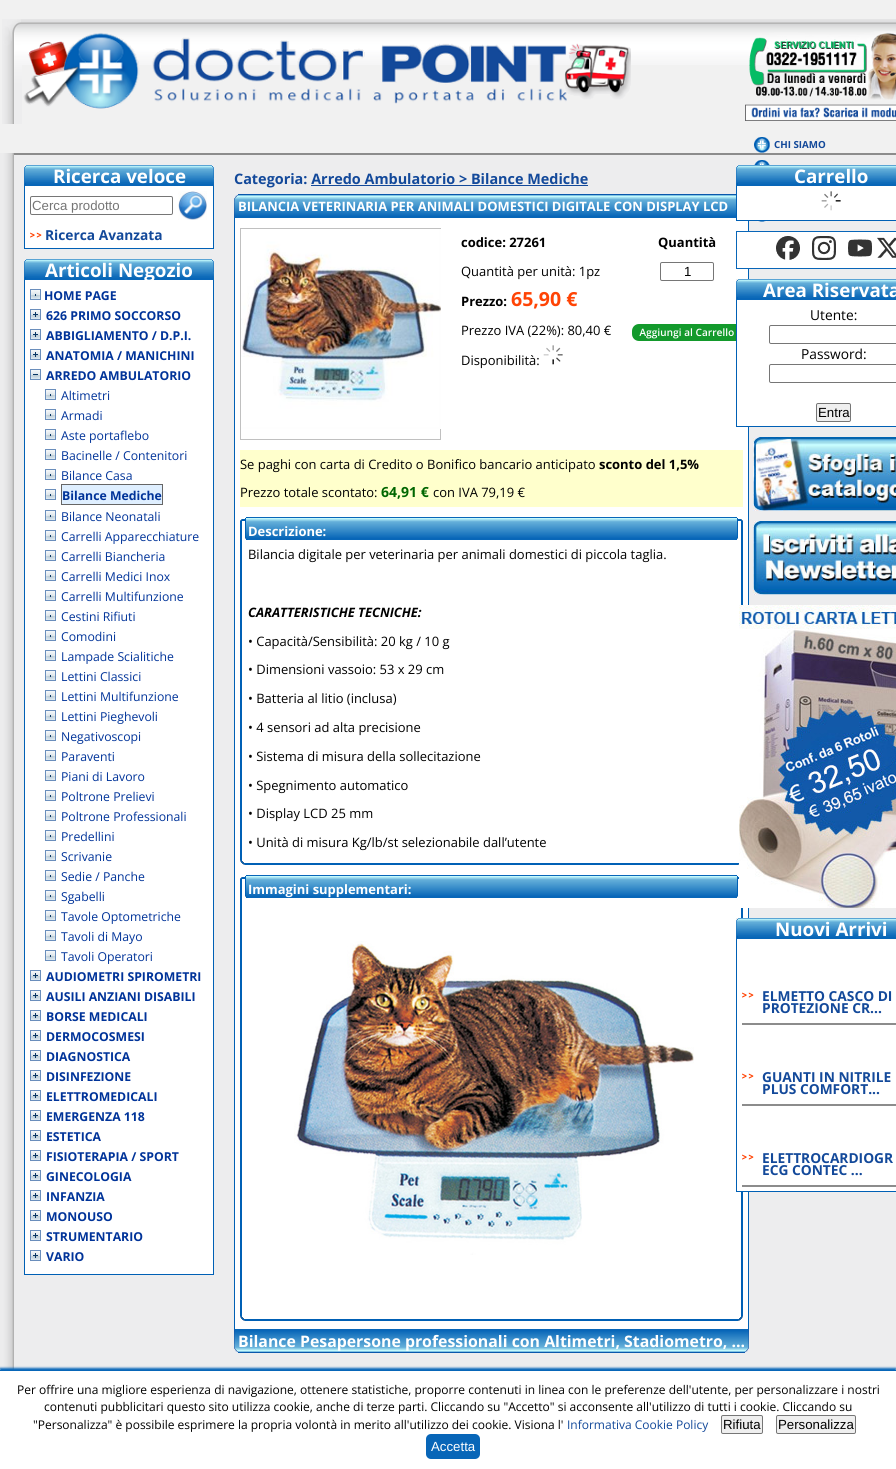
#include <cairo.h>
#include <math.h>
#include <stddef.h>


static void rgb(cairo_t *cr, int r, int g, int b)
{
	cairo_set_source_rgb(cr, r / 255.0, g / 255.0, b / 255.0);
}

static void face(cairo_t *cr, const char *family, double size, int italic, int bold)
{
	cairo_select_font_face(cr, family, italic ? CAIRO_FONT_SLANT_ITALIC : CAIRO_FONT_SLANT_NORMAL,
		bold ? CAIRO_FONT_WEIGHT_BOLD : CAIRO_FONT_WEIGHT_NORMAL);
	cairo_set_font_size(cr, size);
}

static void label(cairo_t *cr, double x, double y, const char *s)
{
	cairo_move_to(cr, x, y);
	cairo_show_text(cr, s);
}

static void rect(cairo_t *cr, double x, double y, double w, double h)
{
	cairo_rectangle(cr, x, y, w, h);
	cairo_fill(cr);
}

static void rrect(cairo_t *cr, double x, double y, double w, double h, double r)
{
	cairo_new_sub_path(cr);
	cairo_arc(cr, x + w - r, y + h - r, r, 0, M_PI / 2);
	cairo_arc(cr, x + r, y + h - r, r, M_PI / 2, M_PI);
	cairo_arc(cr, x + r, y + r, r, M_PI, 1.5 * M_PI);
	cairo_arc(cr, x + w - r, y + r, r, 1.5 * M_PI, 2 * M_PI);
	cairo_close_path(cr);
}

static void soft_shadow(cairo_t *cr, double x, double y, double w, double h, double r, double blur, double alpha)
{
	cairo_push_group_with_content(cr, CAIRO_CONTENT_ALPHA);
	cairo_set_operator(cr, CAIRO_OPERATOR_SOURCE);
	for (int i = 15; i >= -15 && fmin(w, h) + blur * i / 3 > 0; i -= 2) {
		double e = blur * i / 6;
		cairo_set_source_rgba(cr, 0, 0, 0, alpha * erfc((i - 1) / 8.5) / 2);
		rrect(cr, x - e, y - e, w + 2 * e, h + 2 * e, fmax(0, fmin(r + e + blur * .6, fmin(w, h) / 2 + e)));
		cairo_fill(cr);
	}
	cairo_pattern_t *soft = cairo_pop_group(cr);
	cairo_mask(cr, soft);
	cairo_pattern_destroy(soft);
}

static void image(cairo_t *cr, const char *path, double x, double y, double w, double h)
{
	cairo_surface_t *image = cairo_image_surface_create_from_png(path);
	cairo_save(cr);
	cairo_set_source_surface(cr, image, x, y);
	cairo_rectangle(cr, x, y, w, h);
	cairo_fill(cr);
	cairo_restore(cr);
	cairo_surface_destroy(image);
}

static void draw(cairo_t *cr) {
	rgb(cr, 241, 241, 241);
	cairo_paint(cr);
	image(cr, "image0.png", 2, 19, 20, 105);
	image(cr, "image1.png", 21, 19, 875, 46);
	image(cr, "image2.png", 23, 32, 608, 77);
	image(cr, "image3.png", 745, 31, 151, 90);
	image(cr, "image4.png", 754, 137, 16, 16);
	face(cr, "Open Sans", 9.75, 0, 1);
	rgb(cr, 19, 73, 154);
	label(cr, 774, 148, "CHI SIAMO");
	rgb(cr, 237, 237, 238);
	rect(cr, 14, 155, 882, 1215);
	image(cr, "image5.png", 754, 160, 16, 5);
	image(cr, "image6.png", 756, 221, 12, 1);
	image(cr, "image7.png", 0, 153, 14, 1217);
	rgb(cr, 140, 140, 140);
	rect(cr, 14, 153, 882, 2);
	rgb(cr, 8, 102, 184);
	rect(cr, 24, 185, 2, 1);
	image(cr, "image8.png", 24, 165, 2, 20);
	rect(cr, 26, 184, 188, 2);
	image(cr, "image9.png", 212, 165, 2, 19);
	image(cr, "image10.png", 26, 165, 186, 19);
	face(cr, "Open Sans", 18.75, 0, 1);
	rgb(cr, 255, 255, 255);
	label(cr, 53, 183, "Ricerca veloce");
	rect(cr, 25, 186, 188, 58);
	rgb(cr, 0, 96, 181);
	rect(cr, 213, 186, 1, 58);
	rect(cr, 24, 186, 1, 58);
	rrect(cr, 30.5, 196.5, 142, 18, 1.5);
	rgb(cr, 118, 118, 118);
	cairo_set_line_width(cr, 1);
	cairo_stroke(cr);
	face(cr, "Liberation Sans", 13.25, 0, 0);
	rgb(cr, 117, 117, 117);
	label(cr, 32, 210, "Cerca prodotto");
	image(cr, "image11.png", 178, 191, 29, 29);
	image(cr, "image12.png", 30, 232, 12, 6);
	face(cr, "Open Sans", 13.75, 0, 1);
	rgb(cr, 19, 73, 154);
	label(cr, 45, 240, "Ricerca Avanzata");
	rgb(cr, 255, 255, 255);
	rect(cr, 24, 244, 190, 4);
	rgb(cr, 0, 96, 181);
	rect(cr, 213, 244, 1, 5);
	rect(cr, 24, 248, 190, 1);
	rect(cr, 24, 244, 1, 5);
	rgb(cr, 8, 102, 184);
	rect(cr, 24, 279, 2, 1);
	image(cr, "image8.png", 24, 259, 2, 20);
	rect(cr, 26, 278, 188, 2);
	image(cr, "image9.png", 212, 259, 2, 19);
	image(cr, "image10.png", 26, 259, 186, 19);
	rgb(cr, 255, 255, 255);
	rect(cr, 25, 280, 188, 990);
	face(cr, "Open Sans", 18.75, 0, 1);
	label(cr, 45, 277, "Articoli Negozio");
	rgb(cr, 0, 96, 181);
	rect(cr, 213, 280, 1, 990);
	rect(cr, 24, 280, 1, 990);
	image(cr, "image13.png", 30, 289, 11, 11);
	face(cr, "Open Sans", 12.25, 0, 1);
	rgb(cr, 0, 51, 153);
	label(cr, 44, 300, "HOME PAGE");
	image(cr, "image14.png", 30, 309, 11, 11);
	label(cr, 46, 320, "626 PRIMO SOCCORSO");
	image(cr, "image14.png", 30, 329, 11, 11);
	label(cr, 46, 340, "ABBIGLIAMENTO / D.P.I.");
	image(cr, "image14.png", 30, 349, 11, 11);
	label(cr, 46, 360, "ANATOMIA / MANICHINI");
	image(cr, "image15.png", 30, 369, 11, 11);
	label(cr, 46, 380, "ARREDO AMBULATORIO");
	image(cr, "image13.png", 45, 389, 11, 11);
	face(cr, "Open Sans", 12.25, 0, 0);
	label(cr, 61, 400, "Altimetri");
	image(cr, "image13.png", 45, 409, 11, 11);
	label(cr, 61, 420, "Armadi");
	image(cr, "image13.png", 45, 429, 11, 11);
	label(cr, 61, 440, "Aste portaflebo");
	image(cr, "image13.png", 45, 449, 11, 11);
	label(cr, 61, 460, "Bacinelle / Contenitori");
	image(cr, "image13.png", 45, 469, 11, 11);
	label(cr, 61, 480, "Bilance Casa");
	image(cr, "image13.png", 45, 489, 11, 11);
	rgb(cr, 223, 239, 255);
	cairo_rectangle(cr, 61.5, 484.5, 101, 20);
	cairo_fill_preserve(cr);
	rgb(cr, 102, 102, 102);
	cairo_stroke(cr);
	face(cr, "Open Sans", 12.25, 0, 1);
	rgb(cr, 0, 51, 153);
	label(cr, 62, 500, "Bilance Mediche");
	image(cr, "image13.png", 45, 510, 11, 11);
	face(cr, "Open Sans", 12.25, 0, 0);
	label(cr, 61, 521, "Bilance Neonatali");
	image(cr, "image13.png", 45, 530, 11, 11);
	label(cr, 61, 541, "Carrelli Apparecchiature");
	image(cr, "image13.png", 45, 550, 11, 11);
	label(cr, 61, 561, "Carrelli Biancheria");
	image(cr, "image13.png", 45, 570, 11, 11);
	label(cr, 61, 581, "Carrelli Medici Inox");
	image(cr, "image13.png", 45, 590, 11, 11);
	label(cr, 61, 601, "Carrelli Multifunzione");
	image(cr, "image13.png", 45, 610, 11, 11);
	label(cr, 61, 621, "Cestini Rifiuti");
	image(cr, "image13.png", 45, 630, 11, 11);
	label(cr, 61, 641, "Comodini");
	image(cr, "image13.png", 45, 650, 11, 11);
	label(cr, 61, 661, "Lampade Scialitiche");
	image(cr, "image13.png", 45, 670, 11, 11);
	label(cr, 61, 681, "Lettini Classici");
	image(cr, "image13.png", 45, 690, 11, 11);
	label(cr, 61, 701, "Lettini Multifunzione");
	image(cr, "image13.png", 45, 710, 11, 11);
	label(cr, 61, 721, "Lettini Pieghevoli");
	image(cr, "image13.png", 45, 730, 11, 11);
	label(cr, 61, 741, "Negativoscopi");
	image(cr, "image13.png", 45, 750, 11, 11);
	label(cr, 61, 761, "Paraventi");
	image(cr, "image13.png", 45, 770, 11, 11);
	label(cr, 61, 781, "Piani di Lavoro");
	image(cr, "image13.png", 45, 790, 11, 11);
	label(cr, 61, 801, "Poltrone Prelievi");
	image(cr, "image13.png", 45, 810, 11, 11);
	label(cr, 61, 821, "Poltrone Professionali");
	image(cr, "image13.png", 45, 830, 11, 11);
	label(cr, 61, 841, "Predellini");
	image(cr, "image13.png", 45, 850, 11, 11);
	label(cr, 61, 861, "Scrivanie");
	image(cr, "image13.png", 45, 870, 11, 11);
	label(cr, 61, 881, "Sedie / Panche");
	image(cr, "image13.png", 45, 890, 11, 11);
	label(cr, 61, 901, "Sgabelli");
	image(cr, "image13.png", 45, 910, 11, 11);
	label(cr, 61, 921, "Tavole Optometriche");
	image(cr, "image13.png", 45, 930, 11, 11);
	label(cr, 61, 941, "Tavoli di Mayo");
	image(cr, "image13.png", 45, 950, 11, 11);
	label(cr, 61, 961, "Tavoli Operatori");
	image(cr, "image14.png", 30, 970, 11, 11);
	face(cr, "Open Sans", 12.25, 0, 1);
	label(cr, 46, 981, "AUDIOMETRI SPIROMETRI");
	image(cr, "image14.png", 30, 990, 11, 11);
	label(cr, 46, 1001, "AUSILI ANZIANI DISABILI");
	image(cr, "image14.png", 30, 1010, 11, 11);
	label(cr, 46, 1021, "BORSE MEDICALI");
	image(cr, "image14.png", 30, 1030, 11, 11);
	label(cr, 46, 1041, "DERMOCOSMESI");
	image(cr, "image14.png", 30, 1050, 11, 11);
	label(cr, 46, 1061, "DIAGNOSTICA");
	image(cr, "image14.png", 30, 1070, 11, 11);
	label(cr, 46, 1081, "DISINFEZIONE");
	image(cr, "image14.png", 30, 1090, 11, 11);
	label(cr, 46, 1101, "ELETTROMEDICALI");
	image(cr, "image14.png", 30, 1110, 11, 11);
	label(cr, 46, 1121, "EMERGENZA 118");
	image(cr, "image14.png", 30, 1130, 11, 11);
	label(cr, 46, 1141, "ESTETICA");
	image(cr, "image14.png", 30, 1150, 11, 11);
	label(cr, 46, 1161, "FISIOTERAPIA / SPORT");
	image(cr, "image14.png", 30, 1170, 11, 11);
	label(cr, 46, 1181, "GINECOLOGIA");
	image(cr, "image14.png", 30, 1190, 11, 11);
	label(cr, 46, 1201, "INFANZIA");
	image(cr, "image14.png", 30, 1210, 11, 11);
	label(cr, 46, 1221, "MONOUSO");
	image(cr, "image14.png", 30, 1230, 11, 11);
	label(cr, 46, 1241, "STRUMENTARIO");
	image(cr, "image14.png", 30, 1250, 11, 11);
	label(cr, 46, 1261, "VARIO");
	rgb(cr, 255, 255, 255);
	rect(cr, 24, 1270, 190, 4);
	rgb(cr, 0, 96, 181);
	rect(cr, 213, 1270, 1, 5);
	rect(cr, 24, 1274, 190, 1);
	rect(cr, 24, 1270, 1, 5);
	face(cr, "Open Sans", 14.4, 0, 1);
	rgb(cr, 19, 73, 154);
	label(cr, 234, 184, "Categoria: Arredo Ambulatorio > Bilance Mediche");
	rect(cr, 311, 185, 277, 1);
	image(cr, "image16.png", 234, 194, 4, 24);
	rgb(cr, 8, 102, 184);
	rect(cr, 238, 216, 498, 2);
	image(cr, "image17.png", 238, 194, 498, 22);
	face(cr, "Open Sans", 12.95, 0, 1);
	rgb(cr, 255, 255, 255);
	label(cr, 238, 211, "BILANCIA VETERINARIA PER ANIMALI DOMESTICI DIGITALE CON DISPLAY LCD");
	rect(cr, 235, 218, 513, 1111);
	rgb(cr, 0, 96, 181);
	rect(cr, 748, 218, 1, 1111);
	rect(cr, 234, 218, 1, 1111);
	cairo_rectangle(cr, 240.5, 228.5, 200, 211);
	rgb(cr, 192, 192, 192);
	cairo_stroke(cr);
	image(cr, "image18.png", 241, 229, 200, 200);
	rgb(cr, 0, 0, 0);
	label(cr, 461, 247, "codice: 27261");
	face(cr, "Open Sans", 12.95, 0, 0);
	label(cr, 461, 276, "Quantità per unità: 1pz");
	face(cr, "Open Sans", 12.95, 0, 1);
	label(cr, 461, 306, "Prezzo:");
	face(cr, "Open Sans", 19.5, 0, 1);
	rgb(cr, 255, 68, 5);
	label(cr, 511, 306, "65,90 €");
	face(cr, "Open Sans", 12.95, 0, 0);
	rgb(cr, 0, 0, 0);
	label(cr, 461, 335, "Prezzo IVA (22%): 80,40 €");
	label(cr, 461, 365, "Disponibilità:");
	image(cr, "image19.png", 543, 345, 20, 20);
	face(cr, "Open Sans", 12.95, 0, 1);
	label(cr, 658, 247, "Quantità");
	rrect(cr, 660.5, 262.5, 53, 18, 1.5);
	rgb(cr, 118, 118, 118);
	cairo_stroke(cr);
	face(cr, "Liberation Sans", 13.25, 0, 0);
	rgb(cr, 0, 0, 0);
	label(cr, 684, 276, "1");
	image(cr, "image20.png", 632, 324, 104, 17);
	rgb(cr, 255, 255, 204);
	rect(cr, 240, 450, 503, 57);
	face(cr, "Open Sans", 12.95, 0, 0);
	rgb(cr, 0, 0, 0);
	label(cr, 240, 469, "Se paghi con carta di Credito o Bonifico bancario anticipato");
	face(cr, "Open Sans", 12.95, 0, 1);
	label(cr, 599, 469, "sconto del 1,5%");
	face(cr, "Open Sans", 12.95, 0, 0);
	label(cr, 240, 497, "Prezzo totale scontato:");
	face(cr, "Open Sans", 14, 0, 1);
	rgb(cr, 0, 102, 0);
	label(cr, 381, 497, "64,91 €");
	face(cr, "Open Sans", 12.95, 0, 0);
	rgb(cr, 0, 0, 0);
	label(cr, 433, 497, "con IVA 79,19 €");
	image(cr, "image21.png", 240, 517, 8, 23);
	image(cr, "image22.png", 735, 517, 8, 23);
	image(cr, "image23.png", 248, 517, 487, 23);
	face(cr, "Open Sans", 12.95, 0, 1);
	rgb(cr, 255, 255, 255);
	label(cr, 248, 536, "Descrizione:");
	rgb(cr, 0, 96, 181);
	rect(cr, 240, 540, 2, 317);
	rect(cr, 741, 540, 2, 65);
	face(cr, "Open Sans", 12.95, 0, 0);
	rgb(cr, 0, 0, 0);
	label(cr, 248, 559, "Bilancia digitale per veterinaria per animali domestici di piccola taglia.");
	face(cr, "Open Sans", 12.95, 1, 1);
	label(cr, 248, 617, "CARATTERISTICHE TECNICHE:");
	face(cr, "Open Sans", 12.95, 0, 0);
	label(cr, 248, 646, "• Capacità/Sensibilità: 20 kg / 10 g");
	label(cr, 248, 674, "• Dimensioni vassoio: 53 x 29 cm");
	label(cr, 248, 703, "• Batteria al litio (inclusa)");
	label(cr, 248, 732, "• 4 sensori ad alta precisione");
	label(cr, 248, 761, "• Sistema di misura della sollecitazione");
	label(cr, 248, 790, "• Spegnimento automatico");
	label(cr, 248, 818, "• Display LCD 25 mm");
	label(cr, 248, 847, "• Unità di misura Kg/lb/st selezionabile dall’utente");
	image(cr, "image24.png", 240, 857, 9, 8);
	image(cr, "image25.png", 734, 857, 5, 8);
	rgb(cr, 0, 96, 181);
	rect(cr, 249, 863, 485, 2);
	image(cr, "image21.png", 240, 875, 8, 23);
	image(cr, "image26.png", 735, 875, 4, 23);
	image(cr, "image23.png", 248, 875, 487, 23);
	face(cr, "Open Sans", 12.95, 0, 1);
	rgb(cr, 255, 255, 255);
	label(cr, 248, 894, "Immagini supplementari:");
	rgb(cr, 0, 96, 181);
	rect(cr, 240, 898, 2, 415);
	rect(cr, 741, 908, 2, 405);
	image(cr, "image27.png", 294, 941, 400, 314);
	image(cr, "image24.png", 240, 1313, 9, 8);
	image(cr, "image28.png", 734, 1313, 9, 8);
	rect(cr, 249, 1319, 485, 2);
	image(cr, "image29.png", 234, 1329, 4, 24);
	image(cr, "image30.png", 745, 1329, 4, 24);
	rgb(cr, 8, 102, 184);
	rect(cr, 238, 1329, 507, 2);
	image(cr, "image31.png", 238, 1331, 507, 22);
	face(cr, "Open Sans", 15.85, 0, 1);
	rgb(cr, 255, 255, 255);
	label(cr, 238, 1347, "Bilance Pesapersone professionali con Altimetri, Stadiometro, …");
	rgb(cr, 8, 102, 184);
	rect(cr, 736, 185, 2, 1);
	image(cr, "image8.png", 736, 165, 2, 20);
	rect(cr, 738, 184, 158, 2);
	image(cr, "image32.png", 738, 165, 158, 19);
	face(cr, "Open Sans", 18.75, 0, 1);
	rgb(cr, 255, 255, 255);
	label(cr, 794, 183, "Carrello");
	rect(cr, 737, 186, 159, 30);
	rgb(cr, 0, 96, 181);
	rect(cr, 736, 186, 1, 30);
	image(cr, "image33.png", 821, 191, 20, 20);
	rgb(cr, 255, 255, 255);
	rect(cr, 736, 216, 160, 4);
	rgb(cr, 0, 96, 181);
	rect(cr, 736, 220, 160, 1);
	rect(cr, 736, 216, 1, 5);
	rgb(cr, 255, 255, 255);
	rect(cr, 748, 232, 148, 36);
	cairo_rectangle(cr, 736.5, 231.5, 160, 37);
	rgb(cr, 8, 102, 184);
	cairo_stroke(cr);
	image(cr, "image34.png", 776, 236, 24, 24);
	image(cr, "image35.png", 812, 236, 24, 24);
	image(cr, "image36.png", 848, 239, 24, 18);
	image(cr, "image37.png", 877, 237, 19, 21);
	rect(cr, 736, 299, 2, 1);
	image(cr, "image8.png", 736, 279, 2, 20);
	rect(cr, 738, 298, 158, 2);
	image(cr, "image32.png", 738, 279, 158, 19);
	rgb(cr, 255, 255, 255);
	label(cr, 763, 297, "Area Riservata");
	rect(cr, 748, 300, 148, 126);
	rgb(cr, 0, 96, 181);
	rect(cr, 736, 300, 1, 122);
	face(cr, "Open Sans", 13.75, 0, 0);
	rgb(cr, 0, 0, 0);
	label(cr, 810, 320, "Utente:");
	rrect(cr, 769.5, 325.5, 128, 18, 1.5);
	rgb(cr, 118, 118, 118);
	cairo_stroke(cr);
	rgb(cr, 0, 0, 0);
	label(cr, 801, 359, "Password:");
	rrect(cr, 769.5, 364.5, 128, 18, 1.5);
	rgb(cr, 118, 118, 118);
	cairo_stroke(cr);
	rgb(cr, 239, 239, 239);
	rrect(cr, 816.5, 403.5, 34, 18, 1.5);
	cairo_fill_preserve(cr);
	rgb(cr, 118, 118, 118);
	cairo_stroke(cr);
	face(cr, "Liberation Sans", 13.25, 0, 0);
	rgb(cr, 0, 0, 0);
	label(cr, 818, 417, "Entra");
	rgb(cr, 0, 96, 181);
	rect(cr, 736, 426, 160, 1);
	rect(cr, 736, 422, 1, 5);
	image(cr, "image38.png", 753, 437, 143, 74);
	image(cr, "image39.png", 753, 521, 143, 74);
	image(cr, "image40.png", 739, 605, 157, 303);
	rgb(cr, 8, 102, 184);
	rect(cr, 736, 938, 2, 1);
	image(cr, "image8.png", 736, 918, 2, 20);
	rect(cr, 738, 937, 158, 2);
	image(cr, "image32.png", 738, 918, 158, 19);
	face(cr, "Open Sans", 18.75, 0, 1);
	rgb(cr, 255, 255, 255);
	label(cr, 775, 936, "Nuovi Arrivi");
	rect(cr, 741, 939, 155, 248);
	rgb(cr, 0, 96, 181);
	rect(cr, 736, 939, 1, 248);
	rgb(cr, 140, 140, 140);
	rect(cr, 742, 1023, 154, 2);
	image(cr, "image12.png", 742, 992, 12, 6);
	face(cr, "Open Sans", 13.75, 0, 1);
	rgb(cr, 19, 73, 154);
	label(cr, 762, 1001, "ELMETTO CASCO DI");
	label(cr, 762, 1013, "PROTEZIONE CR...");
	rgb(cr, 140, 140, 140);
	rect(cr, 742, 1104, 154, 2);
	image(cr, "image12.png", 742, 1073, 12, 6);
	rgb(cr, 19, 73, 154);
	label(cr, 762, 1082, "GUANTI IN NITRILE");
	label(cr, 762, 1094, "PLUS COMFORT...");
	rgb(cr, 140, 140, 140);
	rect(cr, 742, 1185, 154, 2);
	image(cr, "image12.png", 742, 1154, 12, 6);
	rgb(cr, 19, 73, 154);
	label(cr, 762, 1163, "ELETTROCARDIOGR");
	label(cr, 762, 1175, "ECG CONTEC ...");
	rgb(cr, 255, 255, 255);
	rect(cr, 736, 1187, 160, 4);
	rgb(cr, 0, 96, 181);
	rect(cr, 736, 1191, 160, 1);
	rect(cr, 736, 1187, 1, 5);
	rgb(cr, 8, 102, 184);
	soft_shadow(cr, 0, 1368, 896, 99, 0, 1, 1);
	rgb(cr, 255, 255, 255);
	rect(cr, 0, 1371, 896, 98);
	rgb(cr, 8, 102, 184);
	rect(cr, 0, 1370, 896, 1);
	face(cr, "Open Sans", 12, 0, 0);
	rgb(cr, 0, 0, 0);
	label(cr, 17, 1394, "Per offrire una migliore esperienza di navigazione, ottenere statistiche, proporre contenuti in linea con le preferenze dell'utente, per personalizzare i nostri");
	label(cr, 44, 1411, "contenuti pubblicitari questo sito utilizza cookie, anche di terze parti. Cliccando su \"Accetto\" si acconsente all'utilizzo di tutti i cookie. Cliccando su");
	label(cr, 33, 1429, "\"Personalizza\" è possibile esprimere la propria volontà in merito all'utilizzo dei cookie. Visiona l'");
	rgb(cr, 19, 73, 154);
	label(cr, 567, 1429, "Informativa Cookie Policy");
	rgb(cr, 239, 239, 239);
	rrect(cr, 721.5, 1415.5, 41, 18, 1.5);
	cairo_fill_preserve(cr);
	rgb(cr, 118, 118, 118);
	cairo_stroke(cr);
	face(cr, "Liberation Sans", 13.25, 0, 0);
	rgb(cr, 0, 0, 0);
	label(cr, 723, 1429, "Rifiuta");
	rgb(cr, 239, 239, 239);
	rrect(cr, 776.5, 1415.5, 79, 18, 1.5);
	cairo_fill_preserve(cr);
	rgb(cr, 118, 118, 118);
	cairo_stroke(cr);
	rgb(cr, 0, 0, 0);
	label(cr, 778, 1429, "Personalizza");
	rgb(cr, 8, 102, 184);
	rrect(cr, 426, 1434, 54, 25, 5);
	cairo_fill(cr);
	rgb(cr, 255, 255, 255);
	label(cr, 431, 1451, "Accetta");
}

int main(void) {
	cairo_surface_t *surface = cairo_image_surface_create(CAIRO_FORMAT_RGB24, 896, 1469);
	cairo_t *cr = cairo_create(surface);
	cairo_font_options_t *options = cairo_font_options_create();
	cairo_font_options_set_hint_metrics(options, CAIRO_HINT_METRICS_OFF);
	cairo_font_options_set_hint_style(options, CAIRO_HINT_STYLE_NONE);
	cairo_set_font_options(cr, options);
	cairo_set_miter_limit(cr, 4);
	draw(cr);
	cairo_surface_write_to_png(surface, "render.png");
	cairo_font_options_destroy(options);
	cairo_destroy(cr);
	cairo_surface_destroy(surface);
	return 0;
}
